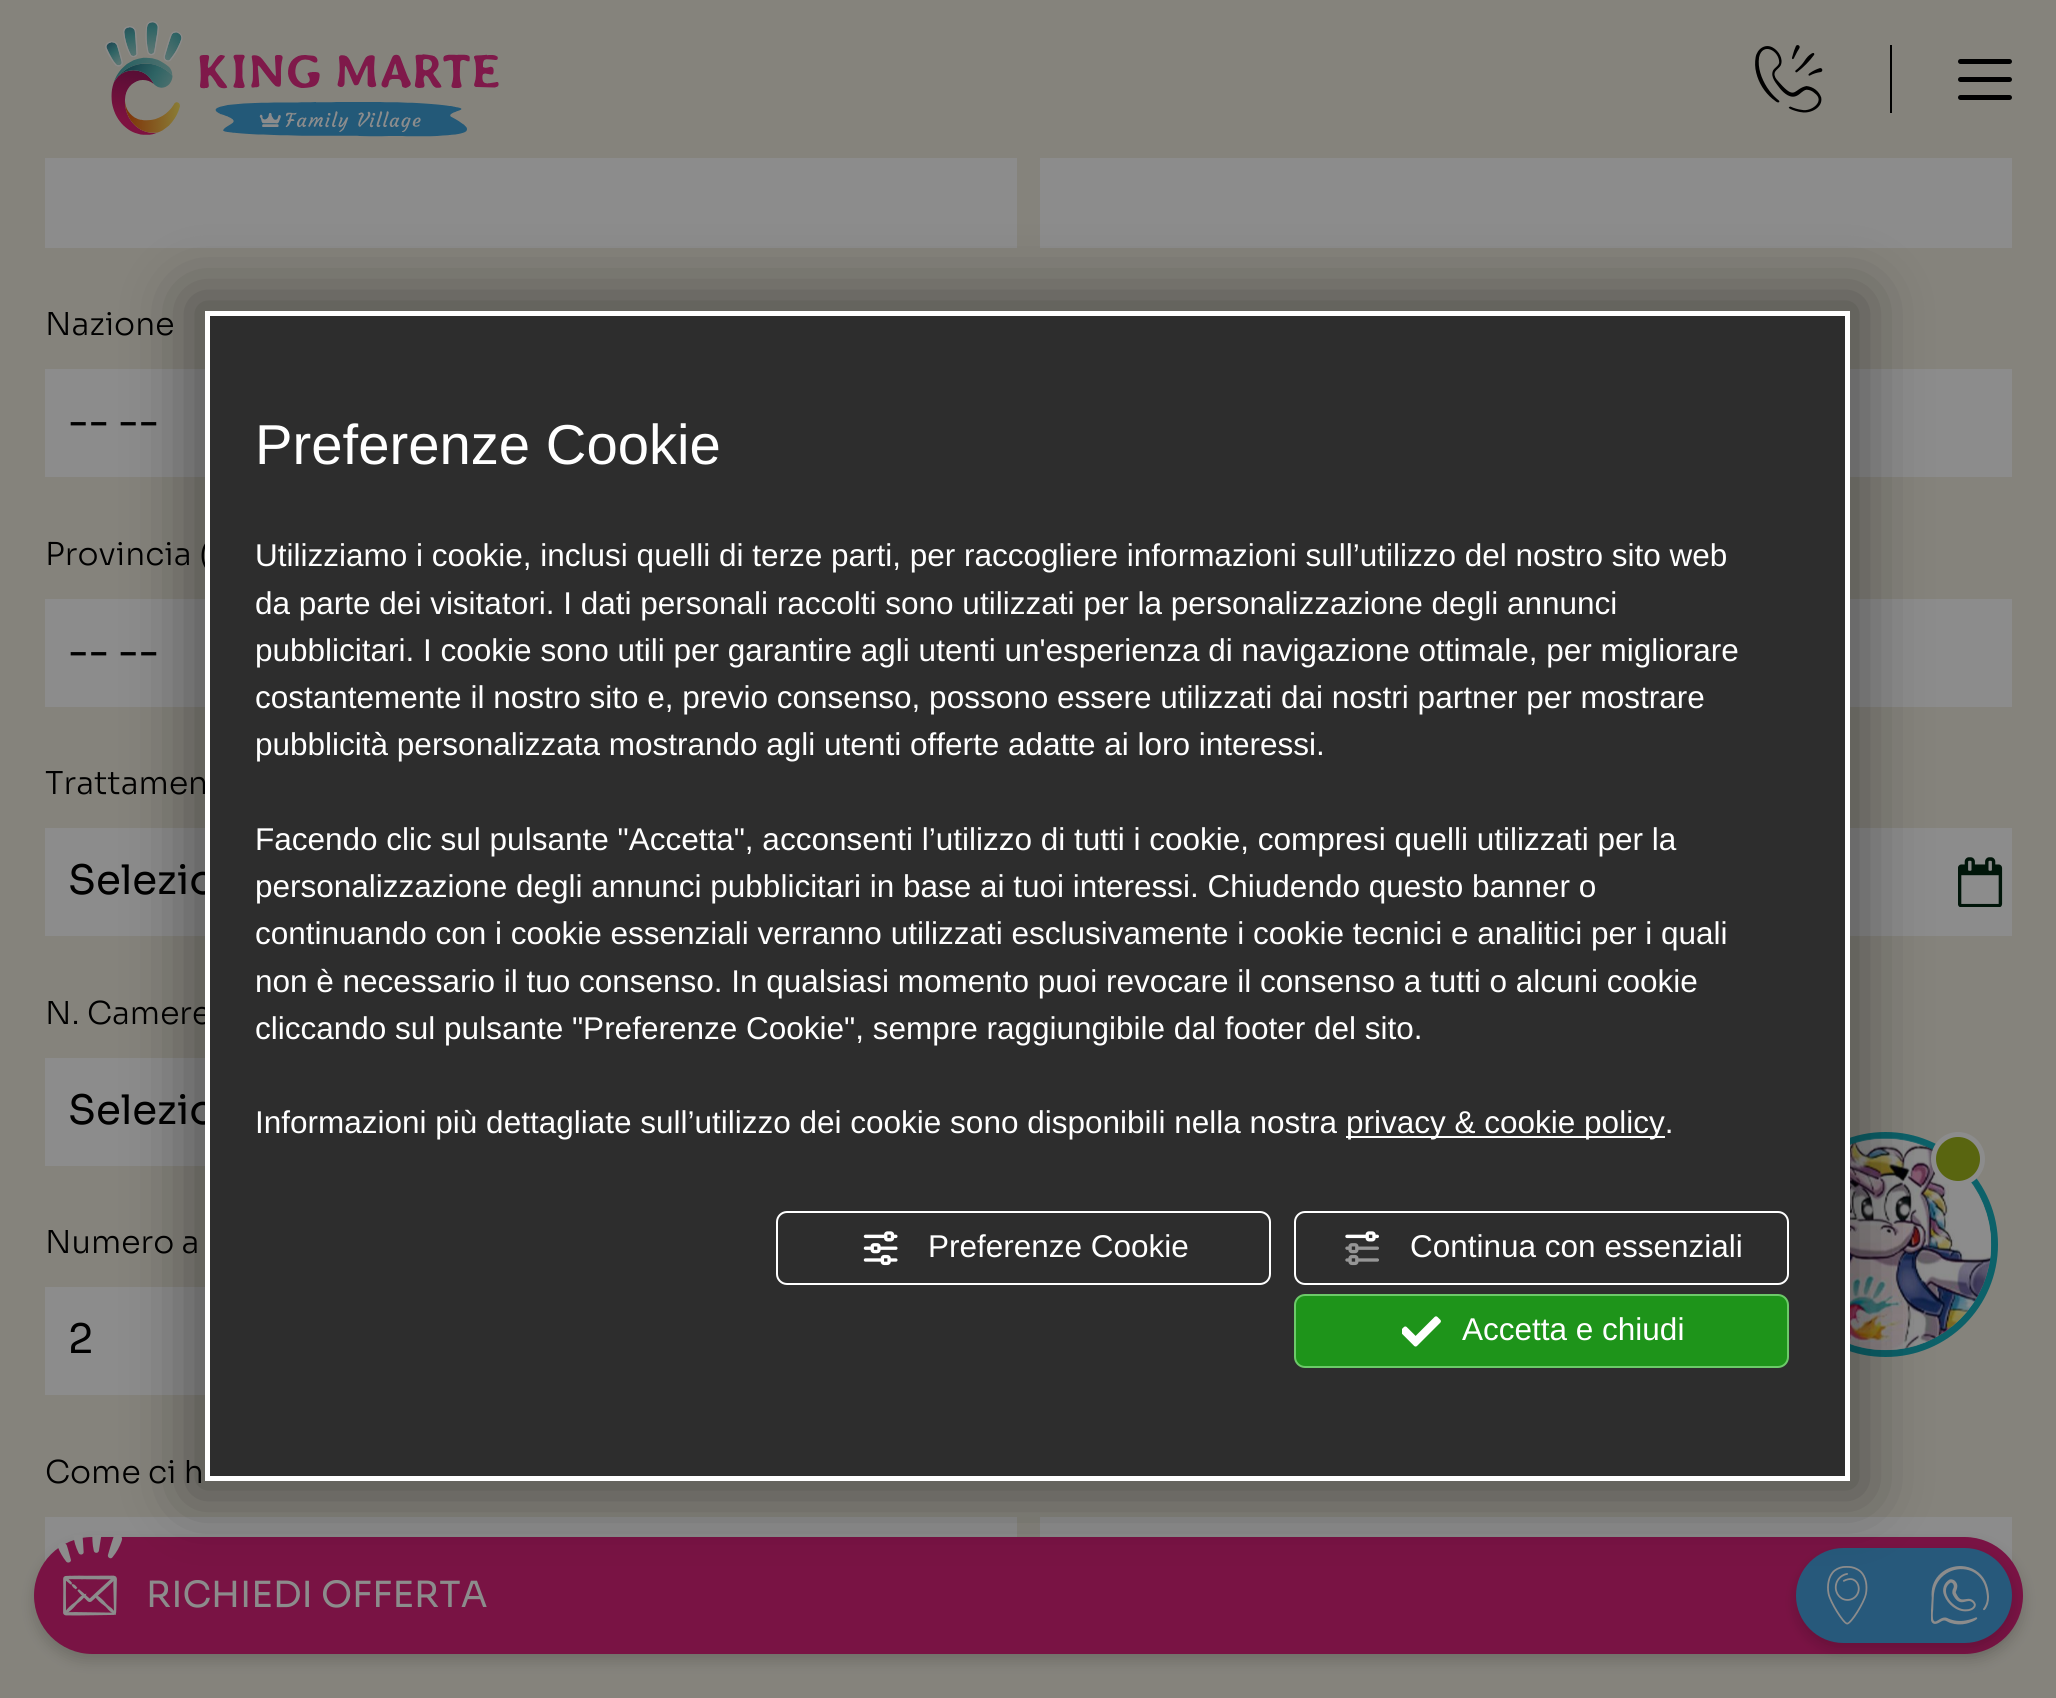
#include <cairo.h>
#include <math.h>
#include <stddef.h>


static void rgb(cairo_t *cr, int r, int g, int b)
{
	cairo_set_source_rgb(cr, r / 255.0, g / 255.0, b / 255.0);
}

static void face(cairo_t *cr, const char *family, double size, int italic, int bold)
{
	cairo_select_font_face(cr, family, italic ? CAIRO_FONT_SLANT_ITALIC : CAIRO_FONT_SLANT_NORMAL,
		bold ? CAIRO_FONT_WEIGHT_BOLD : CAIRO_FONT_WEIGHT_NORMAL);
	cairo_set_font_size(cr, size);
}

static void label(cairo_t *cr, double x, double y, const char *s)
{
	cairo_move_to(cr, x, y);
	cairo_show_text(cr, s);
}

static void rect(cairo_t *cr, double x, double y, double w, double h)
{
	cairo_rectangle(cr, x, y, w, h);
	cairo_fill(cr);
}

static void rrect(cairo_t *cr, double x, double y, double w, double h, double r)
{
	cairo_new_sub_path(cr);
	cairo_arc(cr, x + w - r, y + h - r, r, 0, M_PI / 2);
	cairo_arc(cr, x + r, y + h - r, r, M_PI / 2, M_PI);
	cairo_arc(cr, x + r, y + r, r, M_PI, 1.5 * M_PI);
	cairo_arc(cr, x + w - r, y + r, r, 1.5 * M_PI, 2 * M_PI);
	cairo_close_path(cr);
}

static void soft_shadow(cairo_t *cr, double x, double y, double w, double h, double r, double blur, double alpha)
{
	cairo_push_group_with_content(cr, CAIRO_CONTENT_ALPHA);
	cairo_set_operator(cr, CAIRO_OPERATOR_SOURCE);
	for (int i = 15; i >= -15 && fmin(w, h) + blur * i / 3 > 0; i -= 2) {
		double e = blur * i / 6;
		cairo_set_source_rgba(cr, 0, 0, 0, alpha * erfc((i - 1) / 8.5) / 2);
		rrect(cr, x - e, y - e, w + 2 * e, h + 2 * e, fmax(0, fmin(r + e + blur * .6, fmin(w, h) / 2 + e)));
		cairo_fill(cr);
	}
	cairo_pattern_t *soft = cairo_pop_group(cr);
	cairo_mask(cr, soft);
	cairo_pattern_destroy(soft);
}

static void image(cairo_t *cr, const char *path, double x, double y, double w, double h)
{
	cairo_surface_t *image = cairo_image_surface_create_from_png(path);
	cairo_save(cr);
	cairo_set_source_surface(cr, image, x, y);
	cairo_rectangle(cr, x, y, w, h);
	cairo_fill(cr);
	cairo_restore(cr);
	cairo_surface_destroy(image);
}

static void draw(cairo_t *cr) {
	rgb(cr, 133, 131, 124);
	cairo_paint(cr);
	rgb(cr, 140, 140, 140);
	rect(cr, 45, 158, 972, 90);
	rect(cr, 1040, 158, 972, 90);
	face(cr, "Sora Light", 31.5, 0, 0);
	rgb(cr, 0, 0, 0);
	label(cr, 45, 335, "Nazione");
	rgb(cr, 140, 140, 140);
	rect(cr, 45, 369, 160, 108);
	face(cr, "Sora", 40.5, 0, 0);
	rgb(cr, 0, 0, 0);
	label(cr, 68, 435, "-- --");
	rgb(cr, 140, 140, 140);
	rect(cr, 1850, 369, 162, 108);
	face(cr, "Sora Light", 31.5, 0, 0);
	rgb(cr, 0, 0, 0);
	label(cr, 45, 565, "Provincia (");
	rgb(cr, 140, 140, 140);
	rect(cr, 45, 599, 160, 108);
	face(cr, "Sora", 40.5, 0, 0);
	rgb(cr, 0, 0, 0);
	label(cr, 68, 665, "-- --");
	rgb(cr, 140, 140, 140);
	rect(cr, 1850, 599, 162, 108);
	face(cr, "Sora Light", 31.5, 0, 0);
	rgb(cr, 0, 0, 0);
	label(cr, 45, 794, "Trattamen");
	rgb(cr, 140, 140, 140);
	rect(cr, 45, 828, 160, 108);
	face(cr, "Sora", 40.5, 0, 0);
	rgb(cr, 0, 0, 0);
	label(cr, 68, 894, "Selezio");
	rgb(cr, 140, 140, 140);
	rect(cr, 1850, 828, 162, 108);
	image(cr, "image0.png", 1958, 857, 45, 50);
	face(cr, "Sora Light", 31.5, 0, 0);
	rgb(cr, 0, 0, 0);
	label(cr, 45, 1024, "N. Camere");
	rgb(cr, 140, 140, 140);
	rect(cr, 45, 1058, 160, 108);
	face(cr, "Sora", 40.5, 0, 0);
	rgb(cr, 0, 0, 0);
	label(cr, 68, 1124, "Selezio");
	face(cr, "Sora Light", 31.5, 0, 0);
	label(cr, 45, 1253, "Numero a");
	rgb(cr, 140, 140, 140);
	rect(cr, 45, 1287, 160, 108);
	face(cr, "Sora", 40.5, 0, 0);
	rgb(cr, 0, 0, 0);
	label(cr, 68, 1353, "2");
	face(cr, "Sora Light", 31.5, 0, 0);
	label(cr, 45, 1483, "Come ci h");
	rgb(cr, 140, 140, 140);
	rect(cr, 45, 1517, 972, 45);
	rect(cr, 1040, 1517, 972, 45);
	image(cr, "image1.png", 105, 21, 394, 116);
	image(cr, "image2.png", 1755, 45, 68, 68);
	rgb(cr, 0, 0, 0);
	rect(cr, 1890, 45, 2, 68);
	rrect(cr, 1958, 59, 54, 5, 2.5);
	cairo_fill(cr);
	rrect(cr, 1958, 77, 54, 5, 2.5);
	cairo_fill(cr);
	rrect(cr, 1958, 95, 54, 5, 2.5);
	cairo_fill(cr);
	rgb(cr, 0, 0, 0);
	soft_shadow(cr, 34, 1544, 1989, 117, 58.5, 7, 0.16);
	rgb(cr, 121, 19, 68);
	rrect(cr, 34, 1537, 1989, 117, 58.5);
	cairo_fill(cr);
	image(cr, "image3.png", 58, 1535, 65, 81);
	face(cr, "Sora", 36, 0, 0);
	rgb(cr, 140, 140, 140);
	label(cr, 146, 1607, "RICHIEDI OFFERTA");
	rgb(cr, 0, 0, 0);
	soft_shadow(cr, 1796, 1555, 216, 94, 47, 7, 0.16);
	rgb(cr, 39, 89, 123);
	rrect(cr, 1796, 1548, 216, 95, 47.5);
	cairo_fill(cr);
	image(cr, "image4.png", 1827, 1566, 41, 59);
	image(cr, "image5.png", 1931, 1566, 58, 59);
	cairo_arc(cr, 1885.5, 1244.5, 109, 0, 2 * M_PI);
	rgb(cr, 12, 97, 105);
	cairo_set_line_width(cr, 7);
	cairo_stroke(cr);
	image(cr, "image9.png", 1850, 1138, 142, 213);
	rgb(cr, 89, 101, 16);
	cairo_arc(cr, 1958, 1159, 24.5, 0, 2 * M_PI);
	cairo_fill_preserve(cr);
	rgb(cr, 140, 140, 140);
	cairo_set_line_width(cr, 5);
	cairo_stroke(cr);
	rgb(cr, 0, 0, 0);
	soft_shadow(cr, 189, 295, 1676, 1201, 0, 32.5, 0.38);
	rgb(cr, 45, 45, 45);
	cairo_rectangle(cr, 207.5, 313.5, 1640, 1165);
	cairo_fill_preserve(cr);
	rgb(cr, 255, 255, 255);
	cairo_stroke(cr);
	face(cr, "Liberation Sans", 56.25, 0, 0);
	label(cr, 255, 464, "Preferenze Cookie");
	face(cr, "Liberation Sans", 31.5, 0, 0);
	label(cr, 255, 566, "Utilizziamo i cookie, inclusi quelli di terze parti, per raccogliere informazioni sull’utilizzo del nostro sito web");
	label(cr, 255, 614, "da parte dei visitatori. I dati personali raccolti sono utilizzati per la personalizzazione degli annunci");
	label(cr, 255, 661, "pubblicitari. I cookie sono utili per garantire agli utenti un'esperienza di navigazione ottimale, per migliorare");
	label(cr, 255, 708, "costantemente il nostro sito e, previo consenso, possono essere utilizzati dai nostri partner per mostrare");
	label(cr, 255, 755, "pubblicità personalizzata mostrando agli utenti offerte adatte ai loro interessi.");
	label(cr, 255, 850, "Facendo clic sul pulsante \"Accetta\", acconsenti l’utilizzo di tutti i cookie, compresi quelli utilizzati per la");
	label(cr, 255, 897, "personalizzazione degli annunci pubblicitari in base ai tuoi interessi. Chiudendo questo banner o");
	label(cr, 255, 944, "continuando con i cookie essenziali verranno utilizzati esclusivamente i cookie tecnici e analitici per i quali");
	label(cr, 255, 992, "non è necessario il tuo consenso. In qualsiasi momento puoi revocare il consenso a tutti o alcuni cookie");
	label(cr, 255, 1039, "cliccando sul pulsante \"Preferenze Cookie\", sempre raggiungibile dal footer del sito.");
	label(cr, 255, 1133, "Informazioni più dettagliate sull’utilizzo dei cookie sono disponibili nella nostra");
	rect(cr, 1346, 1136, 319, 2);
	label(cr, 1346, 1133, "privacy & cookie policy.");
	rrect(cr, 777, 1212, 493, 72, 10);
	cairo_set_line_width(cr, 2);
	cairo_stroke(cr);
	image(cr, "image6.png", 863, 1231, 35, 35);
	label(cr, 928, 1257, "Preferenze Cookie");
	rrect(cr, 1295, 1212, 493, 72, 10);
	cairo_stroke(cr);
	image(cr, "image7.png", 1345, 1231, 34, 35);
	label(cr, 1410, 1257, "Continua con essenziali");
	rgb(cr, 30, 148, 26);
	rrect(cr, 1295, 1295, 493, 72, 10);
	cairo_fill_preserve(cr);
	rgb(cr, 108, 202, 105);
	cairo_stroke(cr);
	image(cr, "image8.png", 1402, 1316, 39, 31);
	rgb(cr, 255, 255, 255);
	label(cr, 1462, 1340, "Accetta e chiudi");
}

int main(void) {
	cairo_surface_t *surface = cairo_image_surface_create(CAIRO_FORMAT_RGB24, 2056, 1698);
	cairo_t *cr = cairo_create(surface);
	cairo_font_options_t *options = cairo_font_options_create();
	cairo_font_options_set_hint_metrics(options, CAIRO_HINT_METRICS_OFF);
	cairo_font_options_set_hint_style(options, CAIRO_HINT_STYLE_NONE);
	cairo_set_font_options(cr, options);
	cairo_set_miter_limit(cr, 4);
	draw(cr);
	cairo_surface_write_to_png(surface, "render.png");
	cairo_font_options_destroy(options);
	cairo_destroy(cr);
	cairo_surface_destroy(surface);
	return 0;
}
